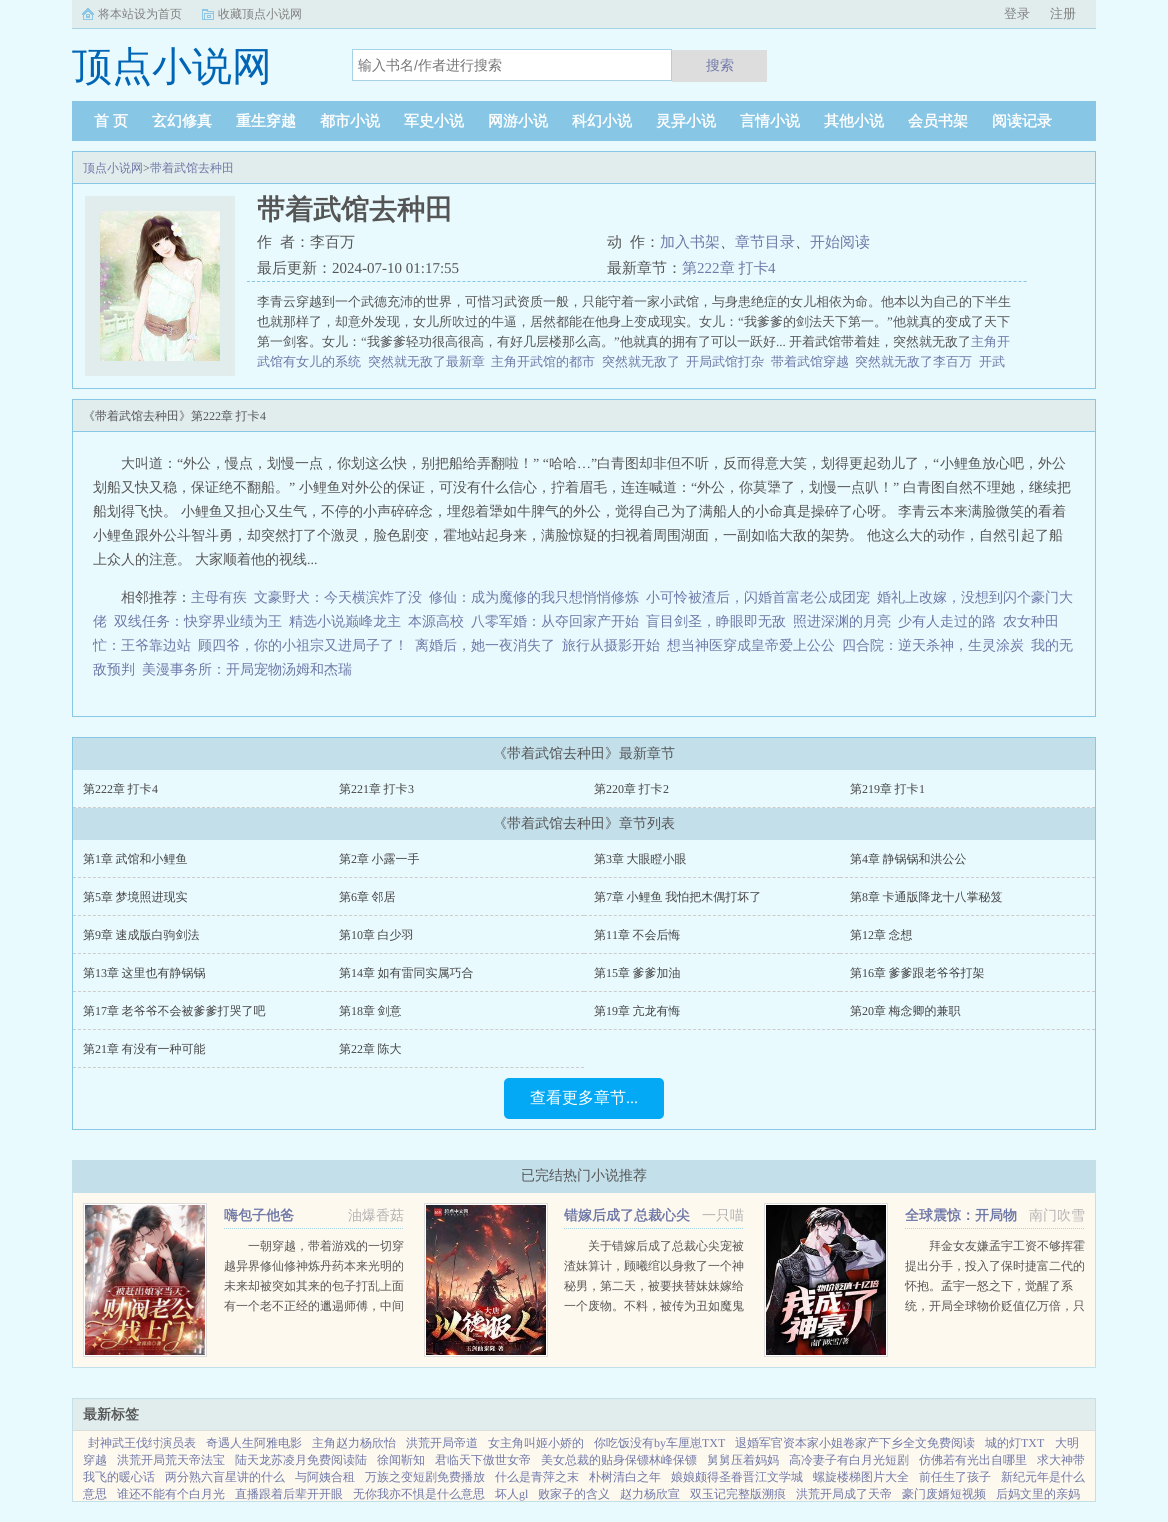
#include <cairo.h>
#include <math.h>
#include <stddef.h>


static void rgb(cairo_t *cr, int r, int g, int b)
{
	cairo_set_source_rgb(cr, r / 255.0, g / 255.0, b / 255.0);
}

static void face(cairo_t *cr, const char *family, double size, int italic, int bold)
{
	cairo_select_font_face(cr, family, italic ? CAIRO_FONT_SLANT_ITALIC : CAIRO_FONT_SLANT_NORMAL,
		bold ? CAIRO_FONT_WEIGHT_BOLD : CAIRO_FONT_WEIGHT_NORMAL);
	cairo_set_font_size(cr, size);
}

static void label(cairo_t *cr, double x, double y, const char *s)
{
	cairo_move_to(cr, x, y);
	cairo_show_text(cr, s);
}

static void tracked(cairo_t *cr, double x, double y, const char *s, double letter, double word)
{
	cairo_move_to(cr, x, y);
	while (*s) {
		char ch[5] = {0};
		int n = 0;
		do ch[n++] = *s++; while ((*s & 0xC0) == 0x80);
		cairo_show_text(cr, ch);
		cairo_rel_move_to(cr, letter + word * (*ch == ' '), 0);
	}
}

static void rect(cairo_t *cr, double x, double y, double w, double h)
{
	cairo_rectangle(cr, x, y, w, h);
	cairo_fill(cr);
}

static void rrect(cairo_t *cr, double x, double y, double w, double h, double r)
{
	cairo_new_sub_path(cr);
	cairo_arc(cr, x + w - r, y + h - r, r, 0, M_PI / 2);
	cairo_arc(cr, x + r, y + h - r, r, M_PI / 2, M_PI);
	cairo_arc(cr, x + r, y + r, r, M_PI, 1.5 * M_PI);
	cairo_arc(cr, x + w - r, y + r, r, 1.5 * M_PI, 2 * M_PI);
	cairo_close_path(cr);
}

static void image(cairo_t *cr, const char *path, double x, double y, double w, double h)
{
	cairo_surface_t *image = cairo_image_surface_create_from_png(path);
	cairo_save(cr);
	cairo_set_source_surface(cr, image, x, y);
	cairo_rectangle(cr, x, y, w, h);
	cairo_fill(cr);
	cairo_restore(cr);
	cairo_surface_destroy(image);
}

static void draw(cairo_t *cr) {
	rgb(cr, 233, 250, 255);
	cairo_paint(cr);
	rgb(cr, 225, 236, 237);
	rect(cr, 72, 0, 1024, 28);
	rgb(cr, 166, 211, 232);
	rect(cr, 72, 28, 1024, 1);
	image(cr, "image0.png", 82, 8, 12, 12);
	face(cr, "WenQuanYi Zen Hei Medium", 12, 0, 0);
	rgb(cr, 128, 128, 128);
	label(cr, 98, 18, "将本站设为首页");
	image(cr, "image1.png", 202, 9, 12, 11);
	label(cr, 218, 18, "收藏顶点小说网");
	face(cr, "WenQuanYi Zen Hei Medium", 13, 0, 0);
	label(cr, 1004, 18, "登录");
	label(cr, 1050, 18, "注册");
	face(cr, "WenQuanYi Zen Hei Medium", 40, 0, 0);
	rgb(cr, 0, 101, 181);
	label(cr, 72, 80, "顶点小说网");
	rgb(cr, 255, 255, 255);
	cairo_rectangle(cr, 352.5, 49.5, 319, 31);
	cairo_fill_preserve(cr);
	rgb(cr, 166, 211, 232);
	cairo_set_line_width(cr, 1);
	cairo_stroke(cr);
	face(cr, "WenQuanYi Zen Hei Medium", 14, 0, 0);
	rgb(cr, 117, 117, 117);
	label(cr, 358, 70, "输入书名");
	face(cr, "Liberation Sans", 14, 0, 0);
	label(cr, 414, 70, "/");
	face(cr, "WenQuanYi Zen Hei Medium", 14, 0, 0);
	label(cr, 418, 70, "作者进行搜索");
	rgb(cr, 221, 221, 221);
	rect(cr, 672, 50, 95, 32);
	rgb(cr, 111, 120, 167);
	label(cr, 706, 70, "搜索");
	rgb(cr, 136, 198, 229);
	rect(cr, 72, 101, 1024, 40);
	face(cr, "WenQuanYi Zen Hei", 15, 0, 1);
	rgb(cr, 255, 255, 255);
	label(cr, 94, 126, "首");
	label(cr, 113, 126, "页");
	label(cr, 152, 126, "玄幻修真");
	label(cr, 236, 126, "重生穿越");
	label(cr, 320, 126, "都市小说");
	label(cr, 404, 126, "军史小说");
	label(cr, 488, 126, "网游小说");
	label(cr, 572, 126, "科幻小说");
	label(cr, 656, 126, "灵异小说");
	label(cr, 740, 126, "言情小说");
	label(cr, 824, 126, "其他小说");
	label(cr, 908, 126, "会员书架");
	label(cr, 992, 126, "阅读记录");
	cairo_rectangle(cr, 72.5, 151.5, 1023, 237);
	rgb(cr, 136, 198, 229);
	cairo_stroke(cr);
	rgb(cr, 225, 236, 237);
	rect(cr, 73, 152, 1022, 31);
	rgb(cr, 136, 198, 229);
	rect(cr, 73, 183, 1022, 1);
	face(cr, "WenQuanYi Zen Hei Medium", 12, 0, 0);
	rgb(cr, 111, 120, 167);
	label(cr, 83, 172, "顶点小说网");
	face(cr, "Liberation Serif", 12, 0, 0);
	rgb(cr, 85, 85, 85);
	label(cr, 143, 172, ">");
	face(cr, "WenQuanYi Zen Hei Medium", 12, 0, 0);
	rgb(cr, 111, 120, 167);
	label(cr, 150, 172, "带着武馆去种田");
	rgb(cr, 225, 236, 237);
	rect(cr, 85, 196, 150, 180);
	image(cr, "image2.png", 100, 211, 120, 150);
	face(cr, "WenQuanYi Zen Hei", 28, 0, 1);
	rgb(cr, 85, 85, 85);
	label(cr, 257, 219, "带着武馆去种田");
	face(cr, "WenQuanYi Zen Hei Medium", 15, 0, 0);
	label(cr, 257, 247, "作");
	label(cr, 280, 247, "者：李百万");
	label(cr, 607, 247, "动");
	label(cr, 630, 247, "作：");
	rgb(cr, 111, 120, 167);
	label(cr, 660, 247, "加入书架");
	face(cr, "WenQuanYi Zen Hei Medium", 15, 1, 0);
	rgb(cr, 85, 85, 85);
	label(cr, 720, 247, "、");
	face(cr, "WenQuanYi Zen Hei Medium", 15, 0, 0);
	rgb(cr, 111, 120, 167);
	label(cr, 735, 247, "章节目录");
	face(cr, "WenQuanYi Zen Hei Medium", 15, 1, 0);
	rgb(cr, 85, 85, 85);
	label(cr, 795, 247, "、");
	face(cr, "WenQuanYi Zen Hei Medium", 15, 0, 0);
	rgb(cr, 111, 120, 167);
	label(cr, 810, 247, "开始阅读");
	rgb(cr, 85, 85, 85);
	label(cr, 257, 273, "最后更新：");
	face(cr, "Liberation Serif", 15, 0, 0);
	label(cr, 332, 273, "2024-07-10 01:17:55");
	face(cr, "WenQuanYi Zen Hei Medium", 15, 0, 0);
	label(cr, 607, 273, "最新章节：");
	rgb(cr, 111, 120, 167);
	label(cr, 682, 273, "第");
	face(cr, "Liberation Serif", 15, 0, 0);
	label(cr, 697, 273, "222");
	face(cr, "WenQuanYi Zen Hei Medium", 15, 0, 0);
	tracked(cr, 720, 273, "章 打卡", 0, -1);
	face(cr, "Liberation Serif", 15, 0, 0);
	label(cr, 768, 273, "4");
	cairo_new_path(cr);
	cairo_move_to(cr, 247, 281.5);
	cairo_line_to(cr, 1027, 281.5);
	rgb(cr, 136, 198, 229);
	cairo_set_dash(cr, (double[]){3, 2.01}, 2, 0);
	cairo_stroke(cr);
	face(cr, "WenQuanYi Zen Hei Medium", 13, 0, 0);
	rgb(cr, 85, 85, 85);
	label(cr, 257, 306, "李青云穿越到一个武德充沛的世界，可惜习武资质一般，只能守着一家小武馆，与身患绝症的女儿相依为命。他本以为自己的下半生");
	label(cr, 257, 326, "也就那样了，却意外发现，女儿所吹过的牛逼，居然都能在他身上变成现实。女儿：");
	face(cr, "Liberation Serif", 13, 0, 0);
	label(cr, 738, 326, "“");
	face(cr, "WenQuanYi Zen Hei Medium", 13, 0, 0);
	label(cr, 744, 326, "我爹爹的剑法天下第一。");
	face(cr, "Liberation Serif", 13, 0, 0);
	label(cr, 887, 326, "”");
	face(cr, "WenQuanYi Zen Hei Medium", 13, 0, 0);
	label(cr, 893, 326, "他就真的变成了天下");
	label(cr, 257, 346, "第一剑客。女儿：");
	face(cr, "Liberation Serif", 13, 0, 0);
	label(cr, 361, 346, "“");
	face(cr, "WenQuanYi Zen Hei Medium", 13, 0, 0);
	label(cr, 367, 346, "我爹爹轻功很高很高，有好几层楼那么高。");
	face(cr, "Liberation Serif", 13, 0, 0);
	label(cr, 614, 346, "”");
	face(cr, "WenQuanYi Zen Hei Medium", 13, 0, 0);
	label(cr, 620, 346, "他就真的拥有了可以一跃好");
	label(cr, 789, 346, "开着武馆带着娃，突然就无敌了");
	rgb(cr, 111, 120, 167);
	label(cr, 971, 346, "主角开");
	face(cr, "Liberation Serif", 13, 0, 0);
	rgb(cr, 85, 85, 85);
	label(cr, 776, 346, "...");
	face(cr, "WenQuanYi Zen Hei Medium", 13, 0, 0);
	rgb(cr, 111, 120, 167);
	label(cr, 257, 366, "武馆有女儿的系统");
	label(cr, 368, 366, "突然就无敌了最新章");
	label(cr, 491, 366, "主角开武馆的都市");
	label(cr, 602, 366, "突然就无敌了");
	label(cr, 686, 366, "开局武馆打杂");
	label(cr, 771, 366, "带着武馆穿越");
	label(cr, 855, 366, "突然就无敌了李百万");
	label(cr, 979, 366, "开武");
	cairo_rectangle(cr, 72.5, 399.5, 1023, 317);
	rgb(cr, 136, 198, 229);
	cairo_set_dash(cr, NULL, 0, 0);
	cairo_stroke(cr);
	rgb(cr, 225, 236, 237);
	rect(cr, 73, 400, 1022, 31);
	rgb(cr, 136, 198, 229);
	rect(cr, 73, 431, 1022, 1);
	face(cr, "WenQuanYi Zen Hei Medium", 12, 0, 0);
	rgb(cr, 85, 85, 85);
	label(cr, 83, 420, "《带着武馆去种田》第");
	face(cr, "Liberation Serif", 12, 0, 0);
	label(cr, 203, 420, "222");
	face(cr, "WenQuanYi Zen Hei Medium", 12, 0, 0);
	tracked(cr, 221, 420, "章 打卡", 0, -1);
	face(cr, "Liberation Serif", 12, 0, 0);
	label(cr, 260, 420, "4");
	face(cr, "WenQuanYi Zen Hei Medium", 14, 0, 0);
	label(cr, 121, 468, "大叫道：");
	face(cr, "Liberation Serif", 14, 0, 0);
	label(cr, 177, 468, "“");
	face(cr, "WenQuanYi Zen Hei Medium", 14, 0, 0);
	label(cr, 183, 468, "外公，慢点，划慢一点，你划这么快，别把船给弄翻啦！");
	face(cr, "Liberation Serif", 14, 0, 0);
	label(cr, 533, 468, "” “");
	face(cr, "WenQuanYi Zen Hei Medium", 14, 0, 0);
	label(cr, 549, 468, "哈哈");
	face(cr, "Liberation Serif", 14, 0, 0);
	label(cr, 577, 468, "…”");
	face(cr, "WenQuanYi Zen Hei Medium", 14, 0, 0);
	label(cr, 597, 468, "白青图却非但不听，反而得意大笑，划得更起劲儿了，");
	face(cr, "Liberation Serif", 14, 0, 0);
	label(cr, 933, 468, "“");
	face(cr, "WenQuanYi Zen Hei Medium", 14, 0, 0);
	label(cr, 940, 468, "小鲤鱼放心吧，外公");
	label(cr, 93, 492, "划船又快又稳，保证绝不翻船。");
	face(cr, "Liberation Serif", 14, 0, 0);
	label(cr, 289, 492, "”");
	face(cr, "WenQuanYi Zen Hei Medium", 14, 0, 0);
	label(cr, 299, 492, "小鲤鱼对外公的保证，可没有什么信心，拧着眉毛，连连喊道：");
	face(cr, "Liberation Serif", 14, 0, 0);
	label(cr, 691, 492, "“");
	face(cr, "WenQuanYi Zen Hei Medium", 14, 0, 0);
	label(cr, 697, 492, "外公，你莫犟了，划慢一点叭！");
	face(cr, "Liberation Serif", 14, 0, 0);
	label(cr, 893, 492, "”");
	face(cr, "WenQuanYi Zen Hei Medium", 14, 0, 0);
	label(cr, 903, 492, "白青图自然不理她，继续把");
	label(cr, 93, 516, "船划得飞快。");
	label(cr, 181, 516, "小鲤鱼又担心又生气，不停的小声碎碎念，埋怨着犟如牛脾气的外公，觉得自己为了满船人的小命真是操碎了心呀。");
	label(cr, 898, 516, "李青云本来满脸微笑的看着");
	label(cr, 93, 540, "小鲤鱼跟外公斗智斗勇，却突然打了个激灵，脸色剧变，霍地站起身来，满脸惊疑的扫视着周围湖面，一副如临大敌的架势。");
	label(cr, 867, 540, "他这么大的动作，自然引起了船");
	label(cr, 93, 564, "上众人的注意。");
	label(cr, 195, 564, "大家顺着他的视线");
	face(cr, "Liberation Serif", 14, 0, 0);
	label(cr, 307, 564, "...");
	face(cr, "WenQuanYi Zen Hei Medium", 14, 0, 0);
	label(cr, 121, 602, "相邻推荐：");
	rgb(cr, 111, 120, 167);
	label(cr, 191, 602, "主母有疾");
	label(cr, 254, 602, "文豪野犬：今天横滨炸了没");
	label(cr, 429, 602, "修仙：成为魔修的我只想悄悄修炼");
	label(cr, 646, 602, "小可怜被渣后，闪婚首富老公成团宠");
	label(cr, 877, 602, "婚礼上改嫁，没想到闪个豪门大");
	label(cr, 93, 626, "佬");
	label(cr, 114, 626, "双线任务：快穿界业绩为王");
	label(cr, 289, 626, "精选小说巅峰龙主");
	label(cr, 408, 626, "本源高校");
	label(cr, 471, 626, "八零军婚：从夺回家产开始");
	label(cr, 646, 626, "盲目剑圣，睁眼即无敌");
	label(cr, 793, 626, "照进深渊的月亮");
	label(cr, 898, 626, "少有人走过的路");
	label(cr, 1003, 626, "农女种田");
	label(cr, 93, 650, "忙：王爷靠边站");
	label(cr, 198, 650, "顾四爷，你的小祖宗又进局子了！");
	label(cr, 415, 650, "离婚后，她一夜消失了");
	label(cr, 562, 650, "旅行从摄影开始");
	label(cr, 667, 650, "想当神医穿成皇帝爱上公公");
	label(cr, 842, 650, "四合院：逆天杀神，生灵涂炭");
	label(cr, 1031, 650, "我的无");
	label(cr, 93, 674, "敌预判");
	label(cr, 142, 674, "美漫事务所：开局宠物汤姆和杰瑞");
	cairo_rectangle(cr, 72.5, 737.5, 1023, 392);
	rgb(cr, 136, 198, 229);
	cairo_stroke(cr);
	rgb(cr, 195, 223, 234);
	rect(cr, 73, 738, 1022, 32);
	rgb(cr, 85, 85, 85);
	label(cr, 493, 758, "《带着武馆去种田》最新章节");
	cairo_new_path(cr);
	cairo_move_to(cr, 73, 807.5);
	cairo_line_to(cr, 329, 807.5);
	rgb(cr, 204, 204, 204);
	cairo_set_dash(cr, (double[]){3, 1.96}, 2, 0);
	cairo_stroke(cr);
	face(cr, "WenQuanYi Zen Hei Medium", 12, 0, 0);
	rgb(cr, 68, 68, 68);
	label(cr, 83, 793, "第");
	face(cr, "Liberation Serif", 12, 0, 0);
	label(cr, 95, 793, "222");
	face(cr, "WenQuanYi Zen Hei Medium", 12, 0, 0);
	tracked(cr, 113, 793, "章 打卡", 0, -1);
	face(cr, "Liberation Serif", 12, 0, 0);
	label(cr, 152, 793, "4");
	cairo_new_path(cr);
	cairo_move_to(cr, 329, 807.5);
	cairo_line_to(cr, 584, 807.5);
	rgb(cr, 204, 204, 204);
	cairo_set_dash(cr, (double[]){3, 2.04}, 2, 0);
	cairo_stroke(cr);
	face(cr, "WenQuanYi Zen Hei Medium", 12, 0, 0);
	rgb(cr, 68, 68, 68);
	label(cr, 339, 793, "第");
	face(cr, "Liberation Serif", 12, 0, 0);
	label(cr, 351, 793, "221");
	face(cr, "WenQuanYi Zen Hei Medium", 12, 0, 0);
	tracked(cr, 369, 793, "章 打卡", 0, -1);
	face(cr, "Liberation Serif", 12, 0, 0);
	label(cr, 408, 793, "3");
	cairo_new_path(cr);
	cairo_move_to(cr, 584, 807.5);
	cairo_line_to(cr, 840, 807.5);
	rgb(cr, 204, 204, 204);
	cairo_set_dash(cr, (double[]){3, 1.96}, 2, 0);
	cairo_stroke(cr);
	face(cr, "WenQuanYi Zen Hei Medium", 12, 0, 0);
	rgb(cr, 68, 68, 68);
	label(cr, 594, 793, "第");
	face(cr, "Liberation Serif", 12, 0, 0);
	label(cr, 606, 793, "220");
	face(cr, "WenQuanYi Zen Hei Medium", 12, 0, 0);
	tracked(cr, 624, 793, "章 打卡", 0, -1);
	face(cr, "Liberation Serif", 12, 0, 0);
	label(cr, 663, 793, "2");
	cairo_new_path(cr);
	cairo_move_to(cr, 840, 807.5);
	cairo_line_to(cr, 1095, 807.5);
	rgb(cr, 204, 204, 204);
	cairo_set_dash(cr, (double[]){3, 2.04}, 2, 0);
	cairo_stroke(cr);
	face(cr, "WenQuanYi Zen Hei Medium", 12, 0, 0);
	rgb(cr, 68, 68, 68);
	label(cr, 850, 793, "第");
	face(cr, "Liberation Serif", 12, 0, 0);
	label(cr, 862, 793, "219");
	face(cr, "WenQuanYi Zen Hei Medium", 12, 0, 0);
	tracked(cr, 880, 793, "章 打卡", 0, -1);
	face(cr, "Liberation Serif", 12, 0, 0);
	label(cr, 919, 793, "1");
	rgb(cr, 195, 223, 234);
	rect(cr, 73, 808, 1022, 32);
	face(cr, "WenQuanYi Zen Hei Medium", 14, 0, 0);
	rgb(cr, 85, 85, 85);
	label(cr, 493, 828, "《带着武馆去种田》章节列表");
	cairo_new_path(cr);
	cairo_move_to(cr, 73, 877.5);
	cairo_line_to(cr, 329, 877.5);
	rgb(cr, 204, 204, 204);
	cairo_set_dash(cr, (double[]){3, 1.96}, 2, 0);
	cairo_stroke(cr);
	face(cr, "WenQuanYi Zen Hei Medium", 12, 0, 0);
	rgb(cr, 68, 68, 68);
	label(cr, 83, 863, "第");
	face(cr, "Liberation Serif", 12, 0, 0);
	label(cr, 95, 863, "1");
	face(cr, "WenQuanYi Zen Hei Medium", 12, 0, 0);
	tracked(cr, 101, 863, "章 武馆和小鲤鱼", 0, -1);
	cairo_new_path(cr);
	cairo_move_to(cr, 329, 877.5);
	cairo_line_to(cr, 584, 877.5);
	rgb(cr, 204, 204, 204);
	cairo_set_dash(cr, (double[]){3, 2.04}, 2, 0);
	cairo_stroke(cr);
	rgb(cr, 68, 68, 68);
	label(cr, 339, 863, "第");
	face(cr, "Liberation Serif", 12, 0, 0);
	label(cr, 351, 863, "2");
	face(cr, "WenQuanYi Zen Hei Medium", 12, 0, 0);
	tracked(cr, 357, 863, "章 小露一手", 0, -1);
	cairo_new_path(cr);
	cairo_move_to(cr, 584, 877.5);
	cairo_line_to(cr, 840, 877.5);
	rgb(cr, 204, 204, 204);
	cairo_set_dash(cr, (double[]){3, 1.96}, 2, 0);
	cairo_stroke(cr);
	rgb(cr, 68, 68, 68);
	label(cr, 594, 863, "第");
	face(cr, "Liberation Serif", 12, 0, 0);
	label(cr, 606, 863, "3");
	face(cr, "WenQuanYi Zen Hei Medium", 12, 0, 0);
	tracked(cr, 612, 863, "章 大眼瞪小眼", 0, -1);
	cairo_new_path(cr);
	cairo_move_to(cr, 840, 877.5);
	cairo_line_to(cr, 1095, 877.5);
	rgb(cr, 204, 204, 204);
	cairo_set_dash(cr, (double[]){3, 2.04}, 2, 0);
	cairo_stroke(cr);
	rgb(cr, 68, 68, 68);
	label(cr, 850, 863, "第");
	face(cr, "Liberation Serif", 12, 0, 0);
	label(cr, 862, 863, "4");
	face(cr, "WenQuanYi Zen Hei Medium", 12, 0, 0);
	tracked(cr, 868, 863, "章 静锅锅和洪公公", 0, -1);
	cairo_new_path(cr);
	cairo_move_to(cr, 73, 915.5);
	cairo_line_to(cr, 329, 915.5);
	rgb(cr, 204, 204, 204);
	cairo_set_dash(cr, (double[]){3, 1.96}, 2, 0);
	cairo_stroke(cr);
	rgb(cr, 68, 68, 68);
	label(cr, 83, 901, "第");
	face(cr, "Liberation Serif", 12, 0, 0);
	label(cr, 95, 901, "5");
	face(cr, "WenQuanYi Zen Hei Medium", 12, 0, 0);
	tracked(cr, 101, 901, "章 梦境照进现实", 0, -1);
	cairo_new_path(cr);
	cairo_move_to(cr, 329, 915.5);
	cairo_line_to(cr, 584, 915.5);
	rgb(cr, 204, 204, 204);
	cairo_set_dash(cr, (double[]){3, 2.04}, 2, 0);
	cairo_stroke(cr);
	rgb(cr, 68, 68, 68);
	label(cr, 339, 901, "第");
	face(cr, "Liberation Serif", 12, 0, 0);
	label(cr, 351, 901, "6");
	face(cr, "WenQuanYi Zen Hei Medium", 12, 0, 0);
	tracked(cr, 357, 901, "章 邻居", 0, -1);
	cairo_new_path(cr);
	cairo_move_to(cr, 584, 915.5);
	cairo_line_to(cr, 840, 915.5);
	rgb(cr, 204, 204, 204);
	cairo_set_dash(cr, (double[]){3, 1.96}, 2, 0);
	cairo_stroke(cr);
	rgb(cr, 68, 68, 68);
	label(cr, 594, 901, "第");
	face(cr, "Liberation Serif", 12, 0, 0);
	label(cr, 606, 901, "7");
	face(cr, "WenQuanYi Zen Hei Medium", 12, 0, 0);
	tracked(cr, 612, 901, "章 小鲤鱼 我怕把木偶打坏了", 0, -1);
	cairo_new_path(cr);
	cairo_move_to(cr, 840, 915.5);
	cairo_line_to(cr, 1095, 915.5);
	rgb(cr, 204, 204, 204);
	cairo_set_dash(cr, (double[]){3, 2.04}, 2, 0);
	cairo_stroke(cr);
	rgb(cr, 68, 68, 68);
	label(cr, 850, 901, "第");
	face(cr, "Liberation Serif", 12, 0, 0);
	label(cr, 862, 901, "8");
	face(cr, "WenQuanYi Zen Hei Medium", 12, 0, 0);
	tracked(cr, 868, 901, "章 卡通版降龙十八掌秘笈", 0, -1);
	cairo_new_path(cr);
	cairo_move_to(cr, 73, 953.5);
	cairo_line_to(cr, 329, 953.5);
	rgb(cr, 204, 204, 204);
	cairo_set_dash(cr, (double[]){3, 1.96}, 2, 0);
	cairo_stroke(cr);
	rgb(cr, 68, 68, 68);
	label(cr, 83, 939, "第");
	face(cr, "Liberation Serif", 12, 0, 0);
	label(cr, 95, 939, "9");
	face(cr, "WenQuanYi Zen Hei Medium", 12, 0, 0);
	tracked(cr, 101, 939, "章 速成版白驹剑法", 0, -1);
	cairo_new_path(cr);
	cairo_move_to(cr, 329, 953.5);
	cairo_line_to(cr, 584, 953.5);
	rgb(cr, 204, 204, 204);
	cairo_set_dash(cr, (double[]){3, 2.04}, 2, 0);
	cairo_stroke(cr);
	rgb(cr, 68, 68, 68);
	label(cr, 339, 939, "第");
	face(cr, "Liberation Serif", 12, 0, 0);
	label(cr, 351, 939, "10");
	face(cr, "WenQuanYi Zen Hei Medium", 12, 0, 0);
	tracked(cr, 363, 939, "章 白少羽", 0, -1);
	cairo_new_path(cr);
	cairo_move_to(cr, 584, 953.5);
	cairo_line_to(cr, 840, 953.5);
	rgb(cr, 204, 204, 204);
	cairo_set_dash(cr, (double[]){3, 1.96}, 2, 0);
	cairo_stroke(cr);
	rgb(cr, 68, 68, 68);
	label(cr, 594, 939, "第");
	face(cr, "Liberation Serif", 12, 0, 0);
	label(cr, 606, 939, "11");
	face(cr, "WenQuanYi Zen Hei Medium", 12, 0, 0);
	tracked(cr, 618, 939, "章 不会后悔", 0, -1);
	cairo_new_path(cr);
	cairo_move_to(cr, 840, 953.5);
	cairo_line_to(cr, 1095, 953.5);
	rgb(cr, 204, 204, 204);
	cairo_set_dash(cr, (double[]){3, 2.04}, 2, 0);
	cairo_stroke(cr);
	rgb(cr, 68, 68, 68);
	label(cr, 850, 939, "第");
	face(cr, "Liberation Serif", 12, 0, 0);
	label(cr, 862, 939, "12");
	face(cr, "WenQuanYi Zen Hei Medium", 12, 0, 0);
	tracked(cr, 874, 939, "章 念想", 0, -1);
	cairo_new_path(cr);
	cairo_move_to(cr, 73, 991.5);
	cairo_line_to(cr, 329, 991.5);
	rgb(cr, 204, 204, 204);
	cairo_set_dash(cr, (double[]){3, 1.96}, 2, 0);
	cairo_stroke(cr);
	rgb(cr, 68, 68, 68);
	label(cr, 83, 977, "第");
	face(cr, "Liberation Serif", 12, 0, 0);
	label(cr, 95, 977, "13");
	face(cr, "WenQuanYi Zen Hei Medium", 12, 0, 0);
	tracked(cr, 107, 977, "章 这里也有静锅锅", 0, -1);
	cairo_new_path(cr);
	cairo_move_to(cr, 329, 991.5);
	cairo_line_to(cr, 584, 991.5);
	rgb(cr, 204, 204, 204);
	cairo_set_dash(cr, (double[]){3, 2.04}, 2, 0);
	cairo_stroke(cr);
	rgb(cr, 68, 68, 68);
	label(cr, 339, 977, "第");
	face(cr, "Liberation Serif", 12, 0, 0);
	label(cr, 351, 977, "14");
	face(cr, "WenQuanYi Zen Hei Medium", 12, 0, 0);
	tracked(cr, 363, 977, "章 如有雷同实属巧合", 0, -1);
	cairo_new_path(cr);
	cairo_move_to(cr, 584, 991.5);
	cairo_line_to(cr, 840, 991.5);
	rgb(cr, 204, 204, 204);
	cairo_set_dash(cr, (double[]){3, 1.96}, 2, 0);
	cairo_stroke(cr);
	rgb(cr, 68, 68, 68);
	label(cr, 594, 977, "第");
	face(cr, "Liberation Serif", 12, 0, 0);
	label(cr, 606, 977, "15");
	face(cr, "WenQuanYi Zen Hei Medium", 12, 0, 0);
	tracked(cr, 618, 977, "章 爹爹加油", 0, -1);
	cairo_new_path(cr);
	cairo_move_to(cr, 840, 991.5);
	cairo_line_to(cr, 1095, 991.5);
	rgb(cr, 204, 204, 204);
	cairo_set_dash(cr, (double[]){3, 2.04}, 2, 0);
	cairo_stroke(cr);
	rgb(cr, 68, 68, 68);
	label(cr, 850, 977, "第");
	face(cr, "Liberation Serif", 12, 0, 0);
	label(cr, 862, 977, "16");
	face(cr, "WenQuanYi Zen Hei Medium", 12, 0, 0);
	tracked(cr, 874, 977, "章 爹爹跟老爷爷打架", 0, -1);
	cairo_new_path(cr);
	cairo_move_to(cr, 73, 1029.5);
	cairo_line_to(cr, 329, 1029.5);
	rgb(cr, 204, 204, 204);
	cairo_set_dash(cr, (double[]){3, 1.96}, 2, 0);
	cairo_stroke(cr);
	rgb(cr, 68, 68, 68);
	label(cr, 83, 1015, "第");
	face(cr, "Liberation Serif", 12, 0, 0);
	label(cr, 95, 1015, "17");
	face(cr, "WenQuanYi Zen Hei Medium", 12, 0, 0);
	tracked(cr, 107, 1015, "章 老爷爷不会被爹爹打哭了吧", 0, -1);
	cairo_new_path(cr);
	cairo_move_to(cr, 329, 1029.5);
	cairo_line_to(cr, 584, 1029.5);
	rgb(cr, 204, 204, 204);
	cairo_set_dash(cr, (double[]){3, 2.04}, 2, 0);
	cairo_stroke(cr);
	rgb(cr, 68, 68, 68);
	label(cr, 339, 1015, "第");
	face(cr, "Liberation Serif", 12, 0, 0);
	label(cr, 351, 1015, "18");
	face(cr, "WenQuanYi Zen Hei Medium", 12, 0, 0);
	tracked(cr, 363, 1015, "章 剑意", 0, -1);
	cairo_new_path(cr);
	cairo_move_to(cr, 584, 1029.5);
	cairo_line_to(cr, 840, 1029.5);
	rgb(cr, 204, 204, 204);
	cairo_set_dash(cr, (double[]){3, 1.96}, 2, 0);
	cairo_stroke(cr);
	rgb(cr, 68, 68, 68);
	label(cr, 594, 1015, "第");
	face(cr, "Liberation Serif", 12, 0, 0);
	label(cr, 606, 1015, "19");
	face(cr, "WenQuanYi Zen Hei Medium", 12, 0, 0);
	tracked(cr, 618, 1015, "章 亢龙有悔", 0, -1);
	cairo_new_path(cr);
	cairo_move_to(cr, 840, 1029.5);
	cairo_line_to(cr, 1095, 1029.5);
	rgb(cr, 204, 204, 204);
	cairo_set_dash(cr, (double[]){3, 2.04}, 2, 0);
	cairo_stroke(cr);
	rgb(cr, 68, 68, 68);
	label(cr, 850, 1015, "第");
	face(cr, "Liberation Serif", 12, 0, 0);
	label(cr, 862, 1015, "20");
	face(cr, "WenQuanYi Zen Hei Medium", 12, 0, 0);
	tracked(cr, 874, 1015, "章 梅念卿的兼职", 0, -1);
	cairo_new_path(cr);
	cairo_move_to(cr, 73, 1067.5);
	cairo_line_to(cr, 329, 1067.5);
	rgb(cr, 204, 204, 204);
	cairo_set_dash(cr, (double[]){3, 1.96}, 2, 0);
	cairo_stroke(cr);
	rgb(cr, 68, 68, 68);
	label(cr, 83, 1053, "第");
	face(cr, "Liberation Serif", 12, 0, 0);
	label(cr, 95, 1053, "21");
	face(cr, "WenQuanYi Zen Hei Medium", 12, 0, 0);
	tracked(cr, 107, 1053, "章 有没有一种可能", 0, -1);
	cairo_new_path(cr);
	cairo_move_to(cr, 329, 1067.5);
	cairo_line_to(cr, 584, 1067.5);
	rgb(cr, 204, 204, 204);
	cairo_set_dash(cr, (double[]){3, 2.04}, 2, 0);
	cairo_stroke(cr);
	rgb(cr, 68, 68, 68);
	label(cr, 339, 1053, "第");
	face(cr, "Liberation Serif", 12, 0, 0);
	label(cr, 351, 1053, "22");
	face(cr, "WenQuanYi Zen Hei Medium", 12, 0, 0);
	tracked(cr, 363, 1053, "章 陈大", 0, -1);
	rgb(cr, 3, 169, 244);
	rrect(cr, 504, 1078, 160, 41, 5);
	cairo_fill(cr);
	face(cr, "WenQuanYi Zen Hei Medium", 16, 0, 0);
	rgb(cr, 255, 255, 255);
	label(cr, 530, 1103, "查看更多章节");
	face(cr, "Liberation Serif", 16, 0, 0);
	label(cr, 626, 1103, "...");
	rgb(cr, 195, 223, 234);
	rect(cr, 72, 1160, 1024, 32);
	face(cr, "WenQuanYi Zen Hei Medium", 14, 0, 0);
	rgb(cr, 85, 85, 85);
	label(cr, 521, 1180, "已完结热门小说推荐");
	rgb(cr, 254, 249, 239);
	cairo_rectangle(cr, 72.5, 1192.5, 1023, 175);
	cairo_fill_preserve(cr);
	rgb(cr, 195, 223, 234);
	cairo_set_dash(cr, NULL, 0, 0);
	cairo_stroke(cr);
	rgb(cr, 255, 255, 255);
	cairo_rectangle(cr, 83.5, 1203.5, 123, 153);
	cairo_fill_preserve(cr);
	rgb(cr, 221, 221, 221);
	cairo_stroke(cr);
	image(cr, "image3.png", 85, 1205, 120, 150);
	cairo_new_path(cr);
	cairo_move_to(cr, 224, 1228.5);
	cairo_line_to(cr, 404, 1228.5);
	rgb(cr, 166, 211, 232);
	cairo_set_dash(cr, (double[]){1, 1}, 2, 0);
	cairo_stroke(cr);
	face(cr, "WenQuanYi Zen Hei", 14, 0, 1);
	rgb(cr, 111, 120, 167);
	label(cr, 224, 1220, "嗨包子他爸");
	face(cr, "WenQuanYi Zen Hei Medium", 14, 0, 0);
	rgb(cr, 179, 179, 179);
	label(cr, 348, 1220, "油爆香菇");
	face(cr, "WenQuanYi Zen Hei Medium", 12, 0, 0);
	rgb(cr, 85, 85, 85);
	label(cr, 248, 1250, "一朝穿越，带着游戏的一切穿");
	label(cr, 224, 1270, "越异界修仙修神炼丹药本来光明的");
	label(cr, 224, 1290, "未来却被突如其来的包子打乱上面");
	label(cr, 224, 1310, "有一个老不正经的邋遢师傅，中间");
	rgb(cr, 255, 255, 255);
	cairo_rectangle(cr, 424.5, 1203.5, 123, 153);
	cairo_fill_preserve(cr);
	rgb(cr, 221, 221, 221);
	cairo_set_dash(cr, NULL, 0, 0);
	cairo_stroke(cr);
	image(cr, "image4.png", 426, 1205, 120, 150);
	cairo_new_path(cr);
	cairo_move_to(cr, 564, 1228.5);
	cairo_line_to(cr, 744, 1228.5);
	rgb(cr, 166, 211, 232);
	cairo_set_dash(cr, (double[]){1, 1}, 2, 0);
	cairo_stroke(cr);
	face(cr, "WenQuanYi Zen Hei", 14, 0, 1);
	rgb(cr, 111, 120, 167);
	label(cr, 564, 1220, "错嫁后成了总裁心尖");
	face(cr, "WenQuanYi Zen Hei Medium", 14, 0, 0);
	rgb(cr, 179, 179, 179);
	label(cr, 702, 1220, "一只喵");
	face(cr, "WenQuanYi Zen Hei Medium", 12, 0, 0);
	rgb(cr, 85, 85, 85);
	label(cr, 588, 1250, "关于错嫁后成了总裁心尖宠被");
	label(cr, 564, 1270, "渣妹算计，顾曦绾以身救了一个神");
	label(cr, 564, 1290, "秘男，第二天，被要挟替妹妹嫁给");
	label(cr, 564, 1310, "一个废物。不料，被传为丑如魔鬼");
	rgb(cr, 255, 255, 255);
	cairo_rectangle(cr, 764.5, 1203.5, 123, 153);
	cairo_fill_preserve(cr);
	rgb(cr, 221, 221, 221);
	cairo_set_dash(cr, NULL, 0, 0);
	cairo_stroke(cr);
	image(cr, "image5.png", 766, 1205, 120, 150);
	cairo_new_path(cr);
	cairo_move_to(cr, 905, 1228.5);
	cairo_line_to(cr, 1085, 1228.5);
	rgb(cr, 166, 211, 232);
	cairo_set_dash(cr, (double[]){1, 1}, 2, 0);
	cairo_stroke(cr);
	face(cr, "WenQuanYi Zen Hei", 14, 0, 1);
	rgb(cr, 111, 120, 167);
	label(cr, 905, 1220, "全球震惊：开局物");
	face(cr, "WenQuanYi Zen Hei Medium", 14, 0, 0);
	rgb(cr, 179, 179, 179);
	label(cr, 1029, 1220, "南门吹雪");
	face(cr, "WenQuanYi Zen Hei Medium", 12, 0, 0);
	rgb(cr, 85, 85, 85);
	label(cr, 929, 1250, "拜金女友嫌孟宇工资不够挥霍");
	label(cr, 905, 1270, "提出分手，投入了保时捷富二代的");
	label(cr, 905, 1290, "怀抱。孟宇一怒之下，觉醒了系");
	label(cr, 905, 1310, "统，开局全球物价贬值亿万倍，只");
	rgb(cr, 254, 249, 239);
	rect(cr, 73, 1431, 1022, 70);
	cairo_rectangle(cr, 72.5, 1398.5, 1023, 103);
	rgb(cr, 195, 223, 234);
	cairo_set_dash(cr, NULL, 0, 0);
	cairo_stroke(cr);
	rgb(cr, 225, 236, 237);
	rect(cr, 73, 1399, 1022, 31);
	rgb(cr, 221, 221, 221);
	rect(cr, 73, 1430, 1022, 1);
	face(cr, "WenQuanYi Zen Hei", 14, 0, 1);
	rgb(cr, 85, 85, 85);
	label(cr, 83, 1419, "最新标签");
	face(cr, "WenQuanYi Zen Hei Medium", 12, 0, 0);
	rgb(cr, 111, 120, 167);
	label(cr, 88, 1447, "封神武王伐纣演员表");
	label(cr, 206, 1447, "奇遇人生阿雅电影");
	label(cr, 312, 1447, "主角赵力杨欣怡");
	label(cr, 406, 1447, "洪荒开局帝道");
	label(cr, 488, 1447, "女主角叫姬小娇的");
	label(cr, 594, 1447, "你吃饭没有");
	face(cr, "Liberation Serif", 12, 0, 0);
	label(cr, 654, 1447, "by");
	face(cr, "WenQuanYi Zen Hei Medium", 12, 0, 0);
	label(cr, 666, 1447, "车厘崽");
	face(cr, "Liberation Serif", 12, 0, 0);
	label(cr, 702, 1447, "TXT");
	face(cr, "WenQuanYi Zen Hei Medium", 12, 0, 0);
	label(cr, 735, 1447, "退婚军官资本家小姐卷家产下乡全文免费阅读");
	label(cr, 985, 1447, "城的灯");
	face(cr, "Liberation Serif", 12, 0, 0);
	label(cr, 1021, 1447, "TXT");
	face(cr, "WenQuanYi Zen Hei Medium", 12, 0, 0);
	label(cr, 1055, 1447, "大明");
	label(cr, 83, 1464, "穿越");
	label(cr, 117, 1464, "洪荒开局荒天帝法宝");
	label(cr, 235, 1464, "陆天龙苏凌月免费阅读陆");
	label(cr, 377, 1464, "徐闻靳知");
	label(cr, 435, 1464, "君临天下傲世女帝");
	label(cr, 541, 1464, "美女总裁的贴身保镖林峰保镖");
	label(cr, 707, 1464, "舅舅压着妈妈");
	label(cr, 789, 1464, "高冷妻子有白月光短剧");
	label(cr, 919, 1464, "仿佛若有光出自哪里");
	label(cr, 1037, 1464, "求大神带");
	label(cr, 83, 1481, "我飞的暖心话");
	label(cr, 165, 1481, "两分熟六盲星讲的什么");
	label(cr, 295, 1481, "与阿姨合租");
	label(cr, 365, 1481, "万族之变短剧免费播放");
	label(cr, 495, 1481, "什么是青萍之末");
	label(cr, 589, 1481, "朴树清白之年");
	label(cr, 671, 1481, "娘娘颇得圣眷晋江文学城");
	label(cr, 813, 1481, "螺旋楼梯图片大全");
	label(cr, 919, 1481, "前任生了孩子");
	label(cr, 1001, 1481, "新纪元年是什么");
	label(cr, 83, 1498, "意思");
	label(cr, 117, 1498, "谁还不能有个白月光");
	label(cr, 235, 1498, "直播跟着后辈开开眼");
	label(cr, 353, 1498, "无你我亦不惧是什么意思");
	label(cr, 495, 1498, "坏人");
	face(cr, "Liberation Serif", 12, 0, 0);
	label(cr, 519, 1498, "gl");
	face(cr, "WenQuanYi Zen Hei Medium", 12, 0, 0);
	label(cr, 538, 1498, "败家子的含义");
	label(cr, 620, 1498, "赵力杨欣宣");
	label(cr, 690, 1498, "双玉记完整版溯痕");
	label(cr, 796, 1498, "洪荒开局成了天帝");
	label(cr, 902, 1498, "豪门废婿短视频");
	label(cr, 996, 1498, "后妈文里的亲妈");
}

int main(void) {
	cairo_surface_t *surface = cairo_image_surface_create(CAIRO_FORMAT_RGB24, 1168, 1522);
	cairo_t *cr = cairo_create(surface);
	cairo_font_options_t *options = cairo_font_options_create();
	cairo_font_options_set_hint_metrics(options, CAIRO_HINT_METRICS_OFF);
	cairo_font_options_set_hint_style(options, CAIRO_HINT_STYLE_NONE);
	cairo_set_font_options(cr, options);
	cairo_set_miter_limit(cr, 4);
	draw(cr);
	cairo_surface_write_to_png(surface, "render.png");
	cairo_font_options_destroy(options);
	cairo_destroy(cr);
	cairo_surface_destroy(surface);
	return 0;
}
